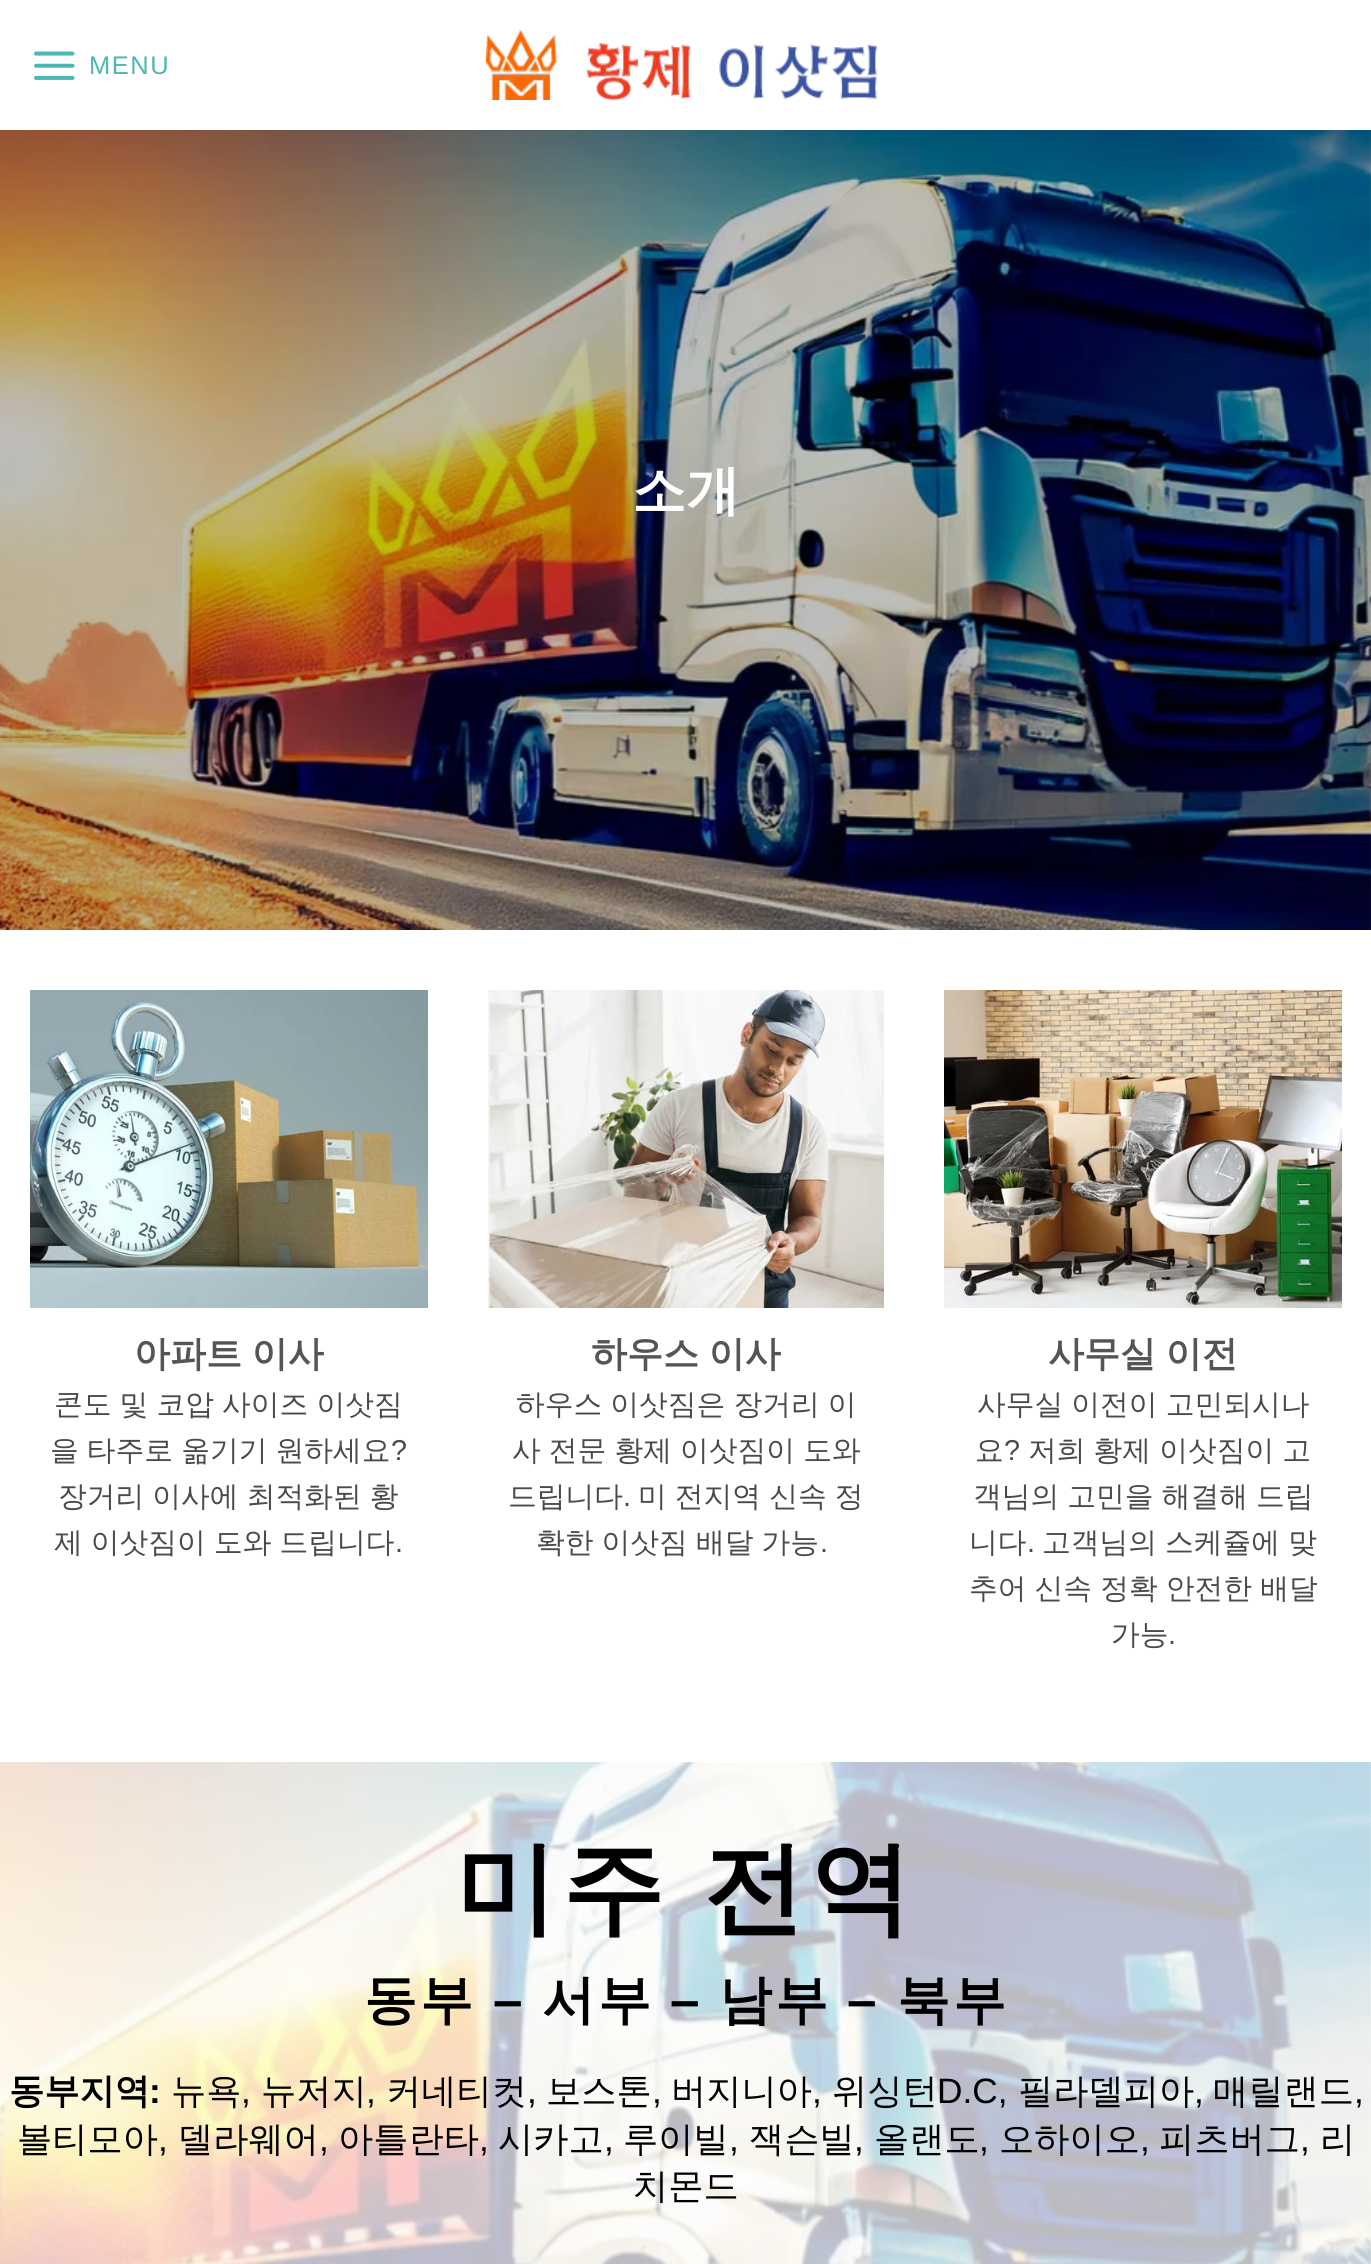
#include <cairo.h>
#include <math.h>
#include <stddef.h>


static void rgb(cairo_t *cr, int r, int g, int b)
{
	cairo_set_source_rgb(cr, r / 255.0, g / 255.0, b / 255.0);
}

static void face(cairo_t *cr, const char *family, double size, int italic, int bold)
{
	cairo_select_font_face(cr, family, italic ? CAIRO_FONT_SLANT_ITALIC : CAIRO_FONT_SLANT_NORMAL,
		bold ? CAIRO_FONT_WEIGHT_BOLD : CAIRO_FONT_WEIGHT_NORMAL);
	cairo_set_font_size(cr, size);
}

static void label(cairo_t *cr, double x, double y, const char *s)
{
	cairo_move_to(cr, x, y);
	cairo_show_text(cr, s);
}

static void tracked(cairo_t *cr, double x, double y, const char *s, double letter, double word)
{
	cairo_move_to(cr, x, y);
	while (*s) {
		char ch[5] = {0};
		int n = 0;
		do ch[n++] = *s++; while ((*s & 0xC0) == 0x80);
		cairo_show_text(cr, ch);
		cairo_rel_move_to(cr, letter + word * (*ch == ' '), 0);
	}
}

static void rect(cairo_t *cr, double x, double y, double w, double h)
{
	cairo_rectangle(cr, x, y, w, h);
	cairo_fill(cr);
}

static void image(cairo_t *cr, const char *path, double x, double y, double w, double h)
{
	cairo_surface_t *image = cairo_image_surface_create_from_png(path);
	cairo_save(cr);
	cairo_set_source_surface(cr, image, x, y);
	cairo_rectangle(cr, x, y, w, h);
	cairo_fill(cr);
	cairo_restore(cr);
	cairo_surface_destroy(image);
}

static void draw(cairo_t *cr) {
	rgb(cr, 255, 255, 255);
	cairo_paint(cr);
	image(cr, "image0.png", 34, 51, 41, 29);
	face(cr, "Liberation Sans", 25.5, 0, 0);
	rgb(cr, 77, 183, 179);
	tracked(cr, 89, 74, "MENU", 1.5, 0);
	image(cr, "image1.png", 486, 30, 392, 70);
	image(cr, "image2.png", 0, 130, 1371, 800);
	cairo_set_source_rgba(cr, 0.29, 0.29, 0.29, 0.1);
	rect(cr, 30, 130, 1312, 2);
	face(cr, "WenQuanYi Zen Hei", 54, 0, 1);
	rgb(cr, 255, 255, 255);
	label(cr, 632, 509, "소개");
	image(cr, "image3.png", 30, 990, 398, 318);
	face(cr, "WenQuanYi Zen Hei", 36, 0, 1);
	rgb(cr, 85, 85, 85);
	tracked(cr, 134, 1366, "아파트 이사", 0, -1);
	face(cr, "WenQuanYi Zen Hei Medium", 28.75, 0, 0);
	rgb(cr, 74, 74, 74);
	tracked(cr, 54, 1414, "콘도 및 코압 사이즈 이삿짐", 0, -0.5);
	tracked(cr, 50, 1460, "을 타주로 옮기기 원하세요", 0, -0.5);
	face(cr, "Liberation Sans", 28.75, 0, 0);
	label(cr, 391, 1460, "?");
	face(cr, "WenQuanYi Zen Hei Medium", 28.75, 0, 0);
	tracked(cr, 58, 1506, "장거리 이사에 최적화된 황", 0, -0.5);
	tracked(cr, 54, 1552, "제 이삿짐이 도와 드립니다", 0, -0.5);
	face(cr, "Liberation Sans", 28.75, 0, 0);
	label(cr, 395, 1552, ".");
	image(cr, "image4.png", 488, 990, 396, 318);
	face(cr, "WenQuanYi Zen Hei", 36, 0, 1);
	rgb(cr, 85, 85, 85);
	tracked(cr, 591, 1366, "하우스 이사", 0, -1);
	face(cr, "WenQuanYi Zen Hei Medium", 28.75, 0, 0);
	rgb(cr, 74, 74, 74);
	tracked(cr, 516, 1414, "하우스 이삿짐은 장거리 이", 0, -0.5);
	tracked(cr, 512, 1460, "사 전문 황제 이삿짐이 도와", 0, -0.5);
	label(cr, 508, 1506, "드립니다");
	face(cr, "Liberation Sans", 28.75, 0, 0);
	label(cr, 623, 1506, ".");
	face(cr, "WenQuanYi Zen Hei Medium", 28.75, 0, 0);
	tracked(cr, 638, 1506, "미 전지역 신속 정", 0, -0.5);
	tracked(cr, 536, 1552, "확한 이삿짐 배달 가능", 0, -0.5);
	face(cr, "Liberation Sans", 28.75, 0, 0);
	label(cr, 820, 1552, ".");
	image(cr, "image5.png", 944, 990, 398, 318);
	face(cr, "WenQuanYi Zen Hei", 36, 0, 1);
	rgb(cr, 85, 85, 85);
	tracked(cr, 1048, 1366, "사무실 이전", 0, -1);
	face(cr, "WenQuanYi Zen Hei Medium", 28.75, 0, 0);
	rgb(cr, 74, 74, 74);
	tracked(cr, 977, 1414, "사무실 이전이 고민되시나", 0, -0.5);
	label(cr, 975, 1460, "요");
	face(cr, "Liberation Sans", 28.75, 0, 0);
	label(cr, 1004, 1460, "?");
	face(cr, "WenQuanYi Zen Hei Medium", 28.75, 0, 0);
	tracked(cr, 1028, 1460, "저희 황제 이삿짐이 고", 0, -0.5);
	tracked(cr, 973, 1506, "객님의 고민을 해결해 드립", 0, -0.5);
	label(cr, 969, 1552, "니다");
	face(cr, "Liberation Sans", 28.75, 0, 0);
	label(cr, 1027, 1552, ".");
	face(cr, "WenQuanYi Zen Hei Medium", 28.75, 0, 0);
	tracked(cr, 1042, 1552, "고객님의 스케쥴에 맞", 0, -0.5);
	tracked(cr, 969, 1598, "추어 신속 정확 안전한 배달", 0, -0.5);
	label(cr, 1111, 1644, "가능");
	face(cr, "Liberation Sans", 28.75, 0, 0);
	label(cr, 1168, 1644, ".");
	image(cr, "image6.png", 0, 1762, 1371, 502);
	face(cr, "WenQuanYi Zen Hei", 102, 0, 1);
	rgb(cr, 0, 0, 0);
	tracked(cr, 455, 1923, "미주 전역", 5, -2);
	face(cr, "WenQuanYi Zen Hei", 53, 0, 1);
	tracked(cr, 364, 2018, "동부", 3, 0);
	face(cr, "Liberation Sans", 53, 0, 1);
	tracked(cr, 493, 2018, "–", 3, 0);
	face(cr, "WenQuanYi Zen Hei", 53, 0, 1);
	tracked(cr, 542, 2018, "서부", 3, 0);
	face(cr, "Liberation Sans", 53, 0, 1);
	tracked(cr, 670, 2018, "–", 3, 0);
	face(cr, "WenQuanYi Zen Hei", 53, 0, 1);
	tracked(cr, 719, 2018, "남부", 3, 0);
	face(cr, "Liberation Sans", 53, 0, 1);
	tracked(cr, 847, 2018, "–", 3, 0);
	face(cr, "WenQuanYi Zen Hei", 53, 0, 1);
	tracked(cr, 897, 2018, "북부", 3, 0);
	face(cr, "WenQuanYi Zen Hei", 35.25, 0, 1);
	label(cr, 9, 2103, "동부지역");
	face(cr, "Liberation Sans", 35.25, 0, 1);
	label(cr, 149, 2103, ":");
	face(cr, "WenQuanYi Zen Hei Medium", 35.25, 0, 0);
	label(cr, 171, 2103, "뉴욕");
	face(cr, "Liberation Sans", 35.25, 0, 0);
	label(cr, 241, 2103, ",");
	face(cr, "WenQuanYi Zen Hei Medium", 35.25, 0, 0);
	label(cr, 261, 2103, "뉴저지");
	face(cr, "Liberation Sans", 35.25, 0, 0);
	label(cr, 366, 2103, ",");
	face(cr, "WenQuanYi Zen Hei Medium", 35.25, 0, 0);
	label(cr, 386, 2103, "커네티컷");
	face(cr, "Liberation Sans", 35.25, 0, 0);
	label(cr, 527, 2103, ",");
	face(cr, "WenQuanYi Zen Hei Medium", 35.25, 0, 0);
	label(cr, 546, 2103, "보스톤");
	face(cr, "Liberation Sans", 35.25, 0, 0);
	label(cr, 652, 2103, ",");
	face(cr, "WenQuanYi Zen Hei Medium", 35.25, 0, 0);
	label(cr, 671, 2103, "버지니아");
	face(cr, "Liberation Sans", 35.25, 0, 0);
	label(cr, 812, 2103, ",");
	face(cr, "WenQuanYi Zen Hei Medium", 35.25, 0, 0);
	label(cr, 832, 2103, "위싱턴");
	face(cr, "Liberation Sans", 35.25, 0, 0);
	label(cr, 937, 2103, "D.C,");
	face(cr, "WenQuanYi Zen Hei Medium", 35.25, 0, 0);
	label(cr, 1018, 2103, "필라델피아");
	face(cr, "Liberation Sans", 35.25, 0, 0);
	label(cr, 1194, 2103, ",");
	face(cr, "WenQuanYi Zen Hei Medium", 35.25, 0, 0);
	label(cr, 1213, 2103, "매릴랜드");
	face(cr, "Liberation Sans", 35.25, 0, 0);
	label(cr, 1354, 2103, ",");
	face(cr, "WenQuanYi Zen Hei Medium", 35.25, 0, 0);
	label(cr, 17, 2151, "볼티모아");
	face(cr, "Liberation Sans", 35.25, 0, 0);
	label(cr, 158, 2151, ",");
	face(cr, "WenQuanYi Zen Hei Medium", 35.25, 0, 0);
	label(cr, 178, 2151, "델라웨어");
	face(cr, "Liberation Sans", 35.25, 0, 0);
	label(cr, 319, 2151, ",");
	face(cr, "WenQuanYi Zen Hei Medium", 35.25, 0, 0);
	label(cr, 338, 2151, "아틀란타");
	face(cr, "Liberation Sans", 35.25, 0, 0);
	label(cr, 479, 2151, ",");
	face(cr, "WenQuanYi Zen Hei Medium", 35.25, 0, 0);
	label(cr, 498, 2151, "시카고");
	face(cr, "Liberation Sans", 35.25, 0, 0);
	label(cr, 604, 2151, ",");
	face(cr, "WenQuanYi Zen Hei Medium", 35.25, 0, 0);
	label(cr, 623, 2151, "루이빌");
	face(cr, "Liberation Sans", 35.25, 0, 0);
	label(cr, 729, 2151, ",");
	face(cr, "WenQuanYi Zen Hei Medium", 35.25, 0, 0);
	label(cr, 749, 2151, "잭슨빌");
	face(cr, "Liberation Sans", 35.25, 0, 0);
	label(cr, 854, 2151, ",");
	face(cr, "WenQuanYi Zen Hei Medium", 35.25, 0, 0);
	label(cr, 874, 2151, "올랜도");
	face(cr, "Liberation Sans", 35.25, 0, 0);
	label(cr, 979, 2151, ",");
	face(cr, "WenQuanYi Zen Hei Medium", 35.25, 0, 0);
	label(cr, 999, 2151, "오하이오");
	face(cr, "Liberation Sans", 35.25, 0, 0);
	label(cr, 1140, 2151, ",");
	face(cr, "WenQuanYi Zen Hei Medium", 35.25, 0, 0);
	label(cr, 1159, 2151, "피츠버그");
	face(cr, "Liberation Sans", 35.25, 0, 0);
	label(cr, 1300, 2151, ",");
	face(cr, "WenQuanYi Zen Hei Medium", 35.25, 0, 0);
	label(cr, 1320, 2151, "리");
	label(cr, 633, 2198, "치몬드");
}

int main(void) {
	cairo_surface_t *surface = cairo_image_surface_create(CAIRO_FORMAT_RGB24, 1371, 2264);
	cairo_t *cr = cairo_create(surface);
	cairo_font_options_t *options = cairo_font_options_create();
	cairo_font_options_set_hint_metrics(options, CAIRO_HINT_METRICS_OFF);
	cairo_font_options_set_hint_style(options, CAIRO_HINT_STYLE_NONE);
	cairo_set_font_options(cr, options);
	cairo_set_miter_limit(cr, 4);
	draw(cr);
	cairo_surface_write_to_png(surface, "render.png");
	cairo_font_options_destroy(options);
	cairo_destroy(cr);
	cairo_surface_destroy(surface);
	return 0;
}
